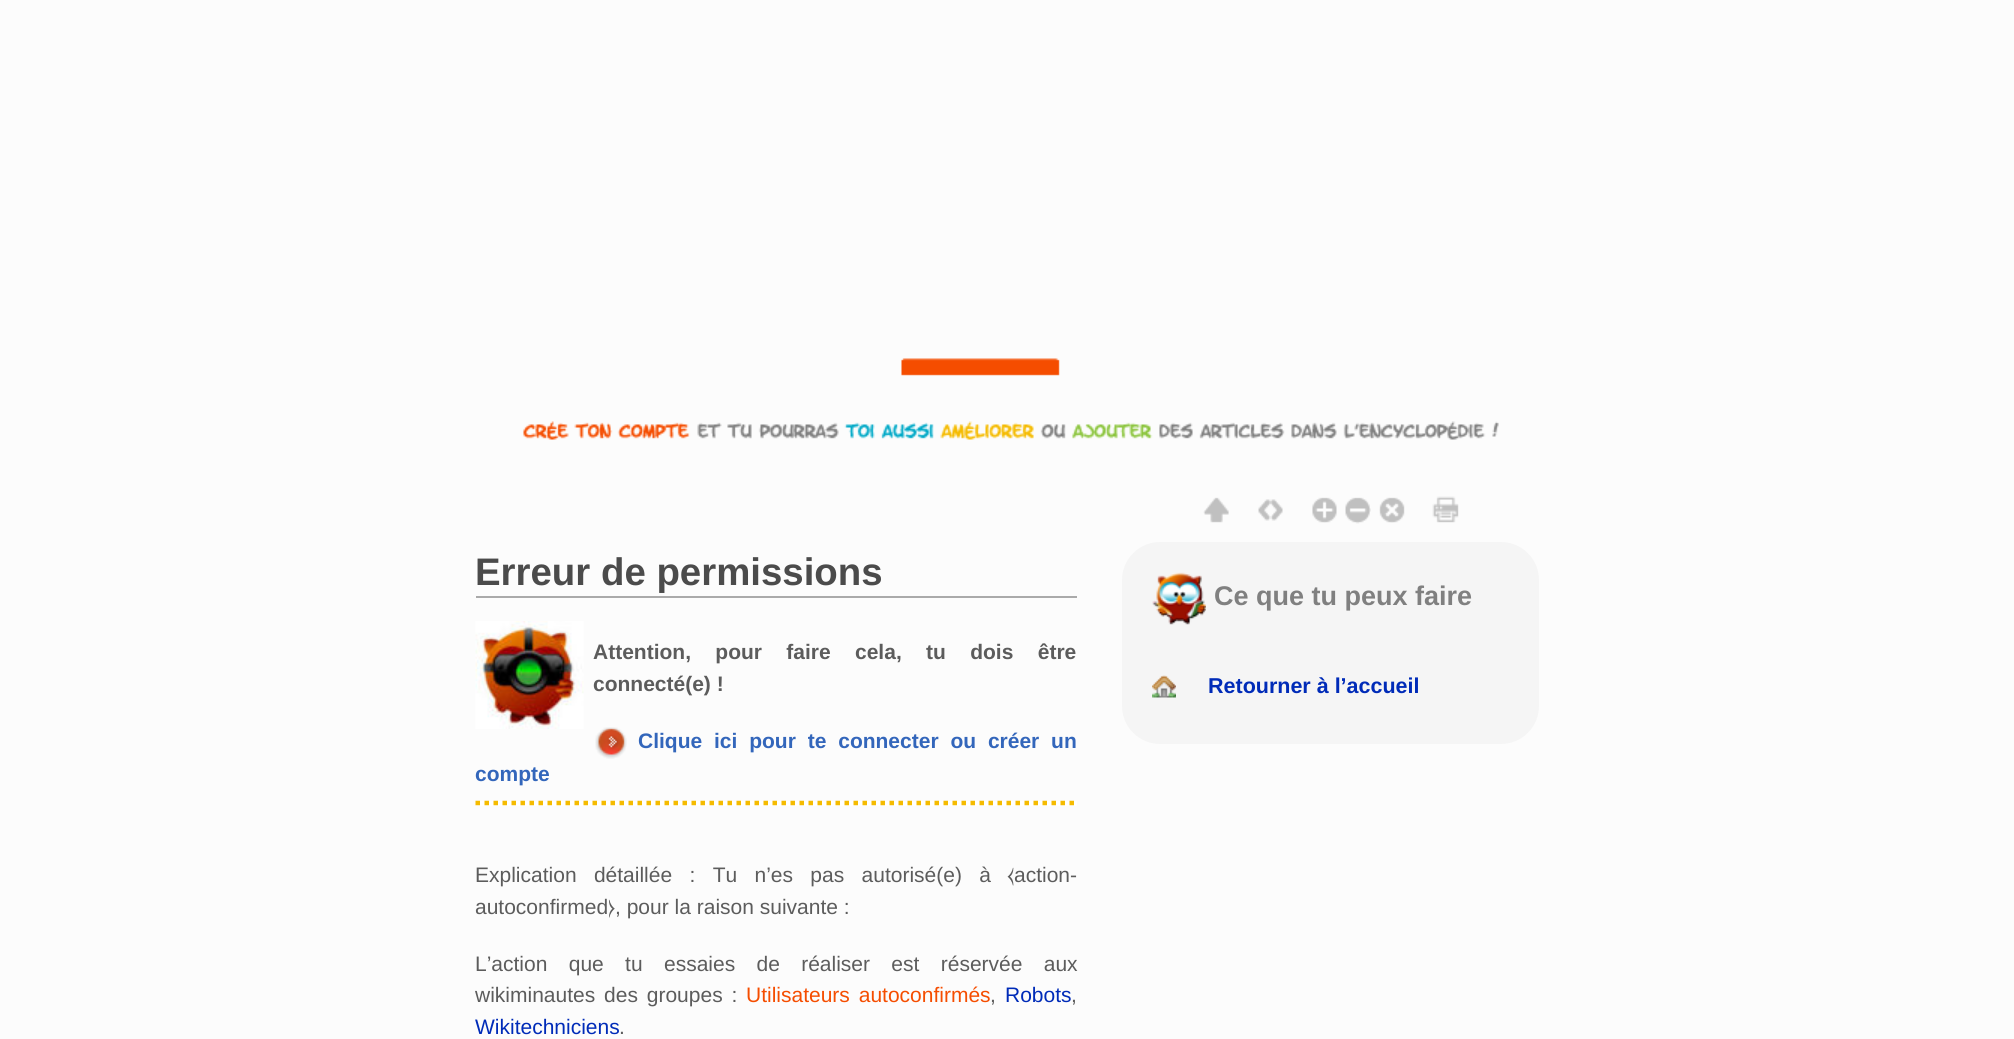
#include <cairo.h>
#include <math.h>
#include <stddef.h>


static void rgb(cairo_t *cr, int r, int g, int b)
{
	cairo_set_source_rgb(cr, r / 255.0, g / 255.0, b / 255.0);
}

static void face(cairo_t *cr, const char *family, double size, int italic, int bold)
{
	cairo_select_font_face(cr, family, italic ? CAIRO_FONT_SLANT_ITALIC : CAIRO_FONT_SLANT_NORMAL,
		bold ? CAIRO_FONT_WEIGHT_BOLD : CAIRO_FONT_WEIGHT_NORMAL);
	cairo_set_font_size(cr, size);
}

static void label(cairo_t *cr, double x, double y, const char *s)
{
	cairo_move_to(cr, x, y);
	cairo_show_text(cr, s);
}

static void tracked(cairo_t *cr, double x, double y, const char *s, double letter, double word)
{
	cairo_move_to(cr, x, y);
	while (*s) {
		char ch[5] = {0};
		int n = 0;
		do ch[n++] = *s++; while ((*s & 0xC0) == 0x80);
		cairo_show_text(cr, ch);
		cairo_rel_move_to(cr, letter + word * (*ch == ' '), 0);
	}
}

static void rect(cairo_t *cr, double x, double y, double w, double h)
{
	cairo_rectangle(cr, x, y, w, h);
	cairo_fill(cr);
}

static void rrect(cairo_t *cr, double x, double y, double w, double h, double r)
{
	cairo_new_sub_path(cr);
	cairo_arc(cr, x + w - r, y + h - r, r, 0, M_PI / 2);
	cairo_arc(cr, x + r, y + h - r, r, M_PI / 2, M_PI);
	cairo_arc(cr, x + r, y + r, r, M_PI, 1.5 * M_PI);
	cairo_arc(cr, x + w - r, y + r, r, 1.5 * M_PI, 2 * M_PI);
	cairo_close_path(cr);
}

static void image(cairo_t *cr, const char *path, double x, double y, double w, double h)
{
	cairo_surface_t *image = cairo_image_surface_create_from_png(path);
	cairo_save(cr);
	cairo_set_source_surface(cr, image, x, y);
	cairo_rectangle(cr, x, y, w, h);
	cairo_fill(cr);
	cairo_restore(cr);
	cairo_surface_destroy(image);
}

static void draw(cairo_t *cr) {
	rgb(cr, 252, 252, 252);
	cairo_paint(cr);
	image(cr, "image0.png", 901, 358, 159, 18);
	image(cr, "image1.png", 523, 421, 976, 19);
	rgb(cr, 170, 170, 170);
	rect(cr, 476, 596, 601, 2);
	face(cr, "Liberation Sans", 38.4, 0, 1);
	rgb(cr, 75, 75, 75);
	label(cr, 475, 585, "Erreur de permissions");
	image(cr, "image2.png", 475, 621, 109, 108);
	face(cr, "Liberation Sans", 21, 0, 1);
	rgb(cr, 92, 92, 92);
	tracked(cr, 593, 659, "Attention, pour faire cela, tu dois être", 0, 18.5);
	label(cr, 593, 691, "connecté(e) !");
	image(cr, "image3.png", 595, 727, 32, 32);
	rgb(cr, 51, 102, 187);
	tracked(cr, 638, 748, "Clique ici pour te connecter ou créer un", 0, 6);
	label(cr, 475, 781, "compte");
	rgb(cr, 255, 255, 255);
	rect(cr, 476, 801, 601, 5);
	cairo_new_path(cr);
	cairo_move_to(cr, 475.5, 803);
	cairo_line_to(cr, 1077, 803);
	rgb(cr, 245, 187, 0);
	cairo_set_line_width(cr, 4.5);
	cairo_set_dash(cr, (double[]){4.5, 4.5}, 2, 0);
	cairo_stroke(cr);
	face(cr, "Liberation Sans", 21, 0, 0);
	rgb(cr, 92, 92, 92);
	tracked(cr, 475, 882, "Explication détaillée : Tu n’es pas autorisé(e) à", 0, 11.5);
	face(cr, "FreeSerif", 21, 0, 0);
	label(cr, 1007, 882, "⧼");
	face(cr, "Liberation Sans", 21, 0, 0);
	label(cr, 1014, 882, "action-");
	label(cr, 475, 914, "autoconfirmed");
	face(cr, "FreeSerif", 21, 0, 0);
	label(cr, 608, 914, "⧽");
	face(cr, "Liberation Sans", 21, 0, 0);
	label(cr, 615, 914, ", pour la raison suivante :");
	tracked(cr, 475, 971, "L’action que tu essaies de réaliser est réservée aux", 0, 15.5);
	tracked(cr, 475, 1002, "wikiminautes des groupes :", 0, 3);
	rgb(cr, 245, 77, 0);
	tracked(cr, 746, 1002, "Utilisateurs autoconfirmés", 0, 3);
	rgb(cr, 92, 92, 92);
	label(cr, 990, 1002, ",");
	rgb(cr, 0, 43, 184);
	label(cr, 1005, 1002, "Robots");
	rgb(cr, 92, 92, 92);
	label(cr, 1071, 1002, ",");
	rgb(cr, 0, 43, 184);
	label(cr, 475, 1034, "Wikitechniciens");
	rgb(cr, 92, 92, 92);
	label(cr, 619, 1034, ".");
	image(cr, "image4.png", 1203, 497, 26, 26);
	image(cr, "image5.png", 1258, 499, 25, 22);
	image(cr, "image6.png", 1312, 497, 25, 26);
	image(cr, "image7.png", 1345, 497, 26, 27);
	image(cr, "image8.png", 1379, 497, 26, 26);
	image(cr, "image9.png", 1432, 496, 27, 27);
	rgb(cr, 245, 245, 245);
	rrect(cr, 1122, 542, 417, 202, 38);
	cairo_fill(cr);
	image(cr, "image10.png", 1152, 572, 54, 53);
	face(cr, "Liberation Sans", 27, 0, 1);
	rgb(cr, 128, 128, 128);
	label(cr, 1214, 605, "Ce que tu peux faire");
	image(cr, "image11.png", 1152, 675, 24, 23);
	face(cr, "Liberation Sans", 21.5, 0, 1);
	rgb(cr, 0, 43, 184);
	label(cr, 1208, 693, "Retourner à l’accueil");
}

int main(void) {
	cairo_surface_t *surface = cairo_image_surface_create(CAIRO_FORMAT_RGB24, 2014, 1039);
	cairo_t *cr = cairo_create(surface);
	cairo_font_options_t *options = cairo_font_options_create();
	cairo_font_options_set_hint_metrics(options, CAIRO_HINT_METRICS_OFF);
	cairo_font_options_set_hint_style(options, CAIRO_HINT_STYLE_NONE);
	cairo_set_font_options(cr, options);
	cairo_set_miter_limit(cr, 4);
	draw(cr);
	cairo_surface_write_to_png(surface, "render.png");
	cairo_font_options_destroy(options);
	cairo_destroy(cr);
	cairo_surface_destroy(surface);
	return 0;
}
